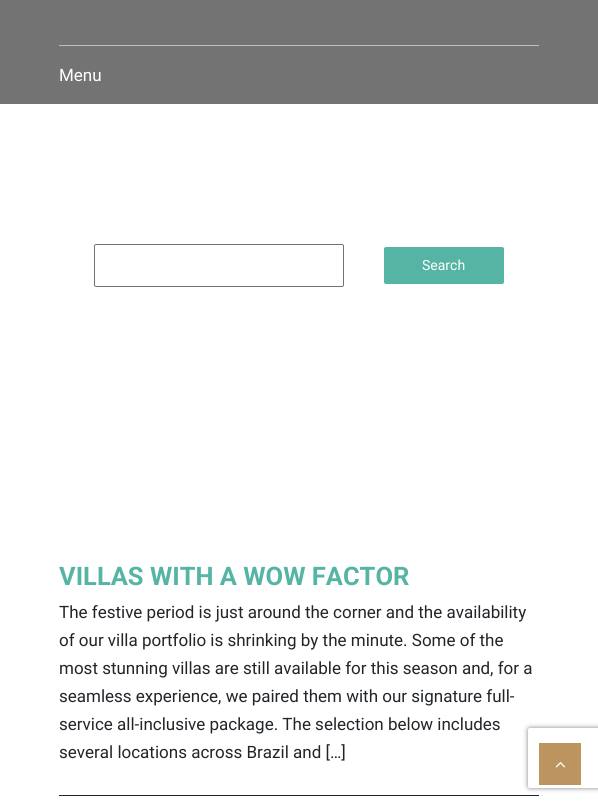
#include <cairo.h>
#include <math.h>
#include <stddef.h>


static void rgb(cairo_t *cr, int r, int g, int b)
{
	cairo_set_source_rgb(cr, r / 255.0, g / 255.0, b / 255.0);
}

static void face(cairo_t *cr, const char *family, double size, int italic, int bold)
{
	cairo_select_font_face(cr, family, italic ? CAIRO_FONT_SLANT_ITALIC : CAIRO_FONT_SLANT_NORMAL,
		bold ? CAIRO_FONT_WEIGHT_BOLD : CAIRO_FONT_WEIGHT_NORMAL);
	cairo_set_font_size(cr, size);
}

static void label(cairo_t *cr, double x, double y, const char *s)
{
	cairo_move_to(cr, x, y);
	cairo_show_text(cr, s);
}

static void rect(cairo_t *cr, double x, double y, double w, double h)
{
	cairo_rectangle(cr, x, y, w, h);
	cairo_fill(cr);
}

static void rrect(cairo_t *cr, double x, double y, double w, double h, double r)
{
	cairo_new_sub_path(cr);
	cairo_arc(cr, x + w - r, y + h - r, r, 0, M_PI / 2);
	cairo_arc(cr, x + r, y + h - r, r, M_PI / 2, M_PI);
	cairo_arc(cr, x + r, y + r, r, M_PI, 1.5 * M_PI);
	cairo_arc(cr, x + w - r, y + r, r, 1.5 * M_PI, 2 * M_PI);
	cairo_close_path(cr);
}

static void soft_shadow(cairo_t *cr, double x, double y, double w, double h, double r, double blur, double alpha)
{
	cairo_push_group_with_content(cr, CAIRO_CONTENT_ALPHA);
	cairo_set_operator(cr, CAIRO_OPERATOR_SOURCE);
	for (int i = 15; i >= -15 && fmin(w, h) + blur * i / 3 > 0; i -= 2) {
		double e = blur * i / 6;
		cairo_set_source_rgba(cr, 0, 0, 0, alpha * erfc((i - 1) / 8.5) / 2);
		rrect(cr, x - e, y - e, w + 2 * e, h + 2 * e, fmax(0, fmin(r + e + blur * .6, fmin(w, h) / 2 + e)));
		cairo_fill(cr);
	}
	cairo_pattern_t *soft = cairo_pop_group(cr);
	cairo_mask(cr, soft);
	cairo_pattern_destroy(soft);
}

static void image(cairo_t *cr, const char *path, double x, double y, double w, double h)
{
	cairo_surface_t *image = cairo_image_surface_create_from_png(path);
	cairo_save(cr);
	cairo_set_source_surface(cr, image, x, y);
	cairo_rectangle(cr, x, y, w, h);
	cairo_fill(cr);
	cairo_restore(cr);
	cairo_surface_destroy(image);
}

static void draw(cairo_t *cr) {
	rgb(cr, 255, 255, 255);
	cairo_paint(cr);
	rgb(cr, 115, 115, 115);
	rect(cr, 0, 0, 598, 104);
	rgb(cr, 192, 192, 192);
	rect(cr, 59, 45, 480, 1);
	face(cr, "Roboto", 17, 0, 0);
	rgb(cr, 255, 255, 255);
	label(cr, 59, 81, "Menu");
	rrect(cr, 94.5, 244.5, 249, 42, 1.5);
	rgb(cr, 115, 115, 115);
	cairo_set_line_width(cr, 1);
	cairo_stroke(cr);
	rgb(cr, 85, 180, 163);
	rrect(cr, 384, 247, 120, 37, 2);
	cairo_fill(cr);
	face(cr, "Roboto", 14, 0, 0);
	rgb(cr, 255, 255, 255);
	label(cr, 422, 270, "Search");
	rgb(cr, 33, 37, 41);
	rect(cr, 59, 795, 480, 1);
	face(cr, "Roboto", 25.5, 0, 1);
	rgb(cr, 85, 180, 163);
	label(cr, 59, 585, "VILLAS WITH A WOW FACTOR");
	face(cr, "Roboto", 17, 0, 0);
	rgb(cr, 33, 37, 41);
	label(cr, 59, 618, "The festive period is just around the corner and the availability");
	label(cr, 59, 646, "of our villa portfolio is shrinking by the minute. Some of the");
	label(cr, 59, 674, "most stunning villas are still available for this season and, for a");
	label(cr, 59, 702, "seamless experience, we paired them with our signature full-");
	label(cr, 59, 730, "service all-inclusive package. The selection below includes");
	label(cr, 59, 758, "several locations across Brazil and […]");
	rgb(cr, 188, 148, 96);
	rect(cr, 539, 743, 42, 42);
	image(cr, "image0.png", 555, 762, 11, 6);
	cairo_save(cr);
	cairo_set_fill_rule(cr, CAIRO_FILL_RULE_EVEN_ODD);
	cairo_new_path(cr);
	cairo_move_to(cr, 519, 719);
	cairo_line_to(cr, 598, 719);
	cairo_line_to(cr, 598, 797);
	cairo_line_to(cr, 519, 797);
	cairo_close_path(cr);
	cairo_move_to(cr, 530, 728);
	cairo_line_to(cr, 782, 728);
	cairo_curve_to(cr, 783, 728, 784, 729, 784, 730);
	cairo_line_to(cr, 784, 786);
	cairo_curve_to(cr, 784, 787, 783, 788, 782, 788);
	cairo_line_to(cr, 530, 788);
	cairo_curve_to(cr, 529, 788, 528, 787, 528, 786);
	cairo_line_to(cr, 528, 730);
	cairo_curve_to(cr, 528, 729, 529, 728, 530, 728);
	cairo_close_path(cr);
	cairo_clip(cr);
	rgb(cr, 128, 128, 128);
	soft_shadow(cr, 528, 728, 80, 60, 2, 2.5, 1);
	cairo_restore(cr);
}

int main(void) {
	cairo_surface_t *surface = cairo_image_surface_create(CAIRO_FORMAT_RGB24, 598, 802);
	cairo_t *cr = cairo_create(surface);
	cairo_font_options_t *options = cairo_font_options_create();
	cairo_font_options_set_hint_metrics(options, CAIRO_HINT_METRICS_OFF);
	cairo_font_options_set_hint_style(options, CAIRO_HINT_STYLE_NONE);
	cairo_set_font_options(cr, options);
	cairo_set_miter_limit(cr, 4);
	draw(cr);
	cairo_surface_write_to_png(surface, "render.png");
	cairo_font_options_destroy(options);
	cairo_destroy(cr);
	cairo_surface_destroy(surface);
	return 0;
}
